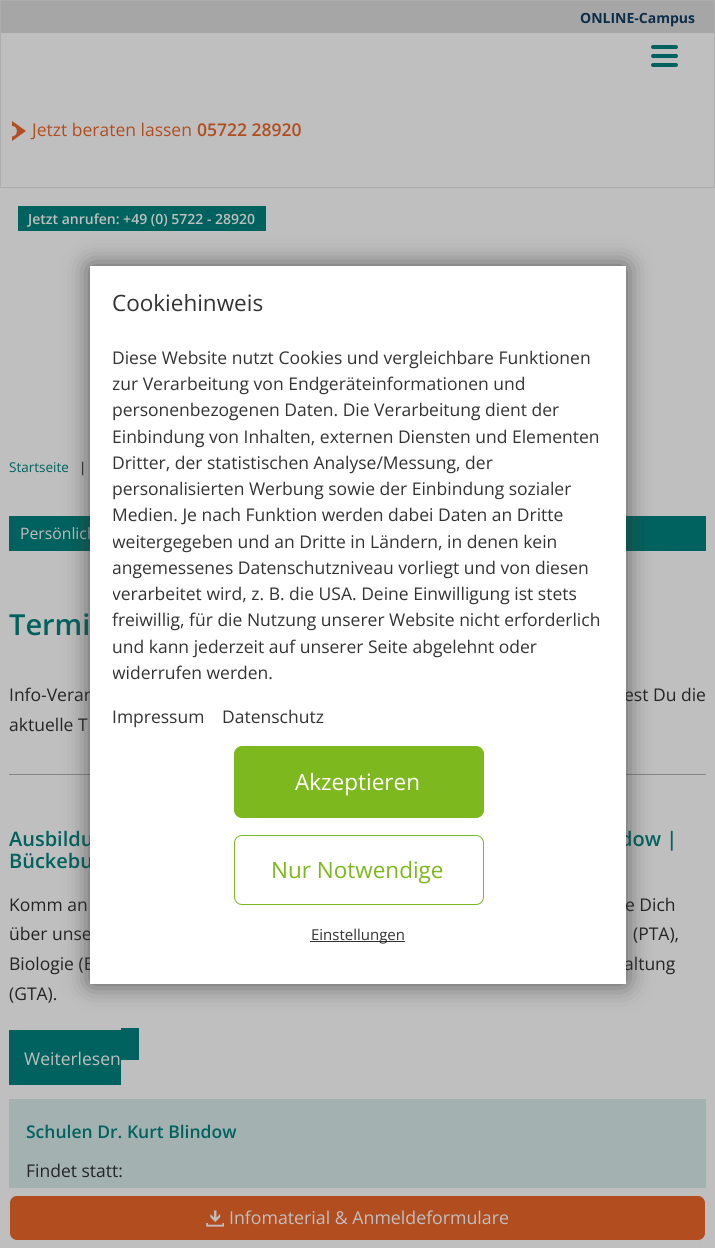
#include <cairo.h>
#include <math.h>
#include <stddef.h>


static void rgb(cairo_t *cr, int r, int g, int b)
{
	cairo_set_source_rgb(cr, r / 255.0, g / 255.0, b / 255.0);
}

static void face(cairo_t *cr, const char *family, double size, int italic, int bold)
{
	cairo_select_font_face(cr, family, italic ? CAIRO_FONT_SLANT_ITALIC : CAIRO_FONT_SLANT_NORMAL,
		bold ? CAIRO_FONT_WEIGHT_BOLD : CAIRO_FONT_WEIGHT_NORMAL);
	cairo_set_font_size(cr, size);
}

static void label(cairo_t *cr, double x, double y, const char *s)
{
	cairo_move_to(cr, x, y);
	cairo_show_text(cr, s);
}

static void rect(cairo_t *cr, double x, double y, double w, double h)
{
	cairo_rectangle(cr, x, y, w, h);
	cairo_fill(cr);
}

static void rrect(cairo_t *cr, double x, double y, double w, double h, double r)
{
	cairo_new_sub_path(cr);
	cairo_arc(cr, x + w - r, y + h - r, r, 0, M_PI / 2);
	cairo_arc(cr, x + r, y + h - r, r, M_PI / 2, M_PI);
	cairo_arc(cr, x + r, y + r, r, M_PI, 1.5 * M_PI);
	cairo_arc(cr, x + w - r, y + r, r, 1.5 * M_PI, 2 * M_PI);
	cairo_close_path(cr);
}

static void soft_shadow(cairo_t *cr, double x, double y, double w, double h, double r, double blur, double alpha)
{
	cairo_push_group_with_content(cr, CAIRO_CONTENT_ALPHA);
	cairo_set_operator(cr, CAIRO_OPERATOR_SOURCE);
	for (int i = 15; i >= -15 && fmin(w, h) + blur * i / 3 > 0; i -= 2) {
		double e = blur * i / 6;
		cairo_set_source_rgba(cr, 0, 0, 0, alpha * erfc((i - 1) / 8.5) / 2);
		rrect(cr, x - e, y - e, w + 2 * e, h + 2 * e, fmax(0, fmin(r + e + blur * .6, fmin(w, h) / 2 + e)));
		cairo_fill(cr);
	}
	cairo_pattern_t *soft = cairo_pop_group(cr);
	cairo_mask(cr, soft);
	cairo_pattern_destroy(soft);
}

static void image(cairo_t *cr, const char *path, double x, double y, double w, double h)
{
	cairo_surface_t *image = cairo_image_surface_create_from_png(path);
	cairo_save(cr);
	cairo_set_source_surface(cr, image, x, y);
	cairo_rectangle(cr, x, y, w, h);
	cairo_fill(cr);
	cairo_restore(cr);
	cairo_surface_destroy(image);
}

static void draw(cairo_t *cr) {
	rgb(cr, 191, 191, 191);
	cairo_paint(cr);
	cairo_rectangle(cr, 0.5, 0.5, 714, 187);
	rgb(cr, 173, 173, 173);
	cairo_set_line_width(cr, 1);
	cairo_stroke(cr);
	rgb(cr, 166, 166, 166);
	rect(cr, 1, 1, 713, 32);
	face(cr, "Open Sans", 14, 0, 1);
	rgb(cr, 11, 45, 74);
	label(cr, 580, 23, "ONLINE-Campus");
	rgb(cr, 0, 98, 94);
	rrect(cr, 651, 45, 27, 4, 2);
	cairo_fill(cr);
	rrect(cr, 651, 54, 27, 4, 2);
	cairo_fill(cr);
	rrect(cr, 651, 63, 27, 4, 2);
	cairo_fill(cr);
	rgb(cr, 177, 77, 31);
	rect(cr, 12, 121, 14, 20);
	cairo_save(cr);
	cairo_rectangle(cr, 10, 119, 18, 26);
	cairo_clip(cr);
	rgb(cr, 191, 191, 191);
	cairo_new_path(cr);
	cairo_move_to(cr, 8, 116.5);
	cairo_line_to(cr, 8, 147);
	cairo_line_to(cr, 30.5, 147);
	cairo_line_to(cr, 30.5, 116.5);
	cairo_close_path(cr);
	cairo_move_to(cr, 12, 141);
	cairo_line_to(cr, 12, 136.5);
	cairo_curve_to(cr, 18.5, 136, 18.5, 126, 12, 126);
	cairo_line_to(cr, 12, 121);
	cairo_line_to(cr, 26, 131);
	cairo_close_path(cr);
	cairo_fill(cr);
	cairo_restore(cr);
	face(cr, "Open Sans", 17.5, 0, 0);
	label(cr, 32, 136, "Jetzt beraten lassen");
	face(cr, "Open Sans SemiBold", 17.5, 0, 0);
	label(cr, 197, 136, "05722 28920");
	rgb(cr, 0, 98, 94);
	rect(cr, 18, 206, 248, 25);
	face(cr, "Open Sans SemiBold", 14, 0, 0);
	rgb(cr, 191, 191, 191);
	label(cr, 28, 224, "Jetzt anrufen: +49 (0) 5722 - 28920");
	face(cr, "Open Sans", 13.5, 0, 0);
	rgb(cr, 0, 98, 94);
	label(cr, 9, 472, "Startseite");
	rgb(cr, 0, 0, 0);
	label(cr, 79, 472, "|");
	rgb(cr, 0, 98, 94);
	rect(cr, 9, 516, 697, 35);
	face(cr, "Open Sans", 15.75, 0, 0);
	rgb(cr, 191, 191, 191);
	label(cr, 20, 539, "Persönlich");
	face(cr, "Open Sans SemiBold", 29, 0, 0);
	rgb(cr, 0, 98, 94);
	label(cr, 9, 635, "Termi");
	face(cr, "Open Sans", 17.5, 0, 0);
	rgb(cr, 36, 36, 36);
	label(cr, 9, 701, "Info-Veran");
	label(cr, 624, 701, "est Du die");
	label(cr, 9, 731, "aktuelle T");
	rgb(cr, 134, 134, 134);
	rect(cr, 9, 774, 697, 1);
	face(cr, "Open Sans SemiBold", 20, 0, 0);
	rgb(cr, 0, 98, 94);
	label(cr, 9, 846, "Ausbildu");
	label(cr, 620, 846, "dow |");
	label(cr, 9, 868, "Bückebu");
	face(cr, "Open Sans", 17.5, 0, 0);
	rgb(cr, 36, 36, 36);
	label(cr, 9, 911, "Komm an");
	label(cr, 625, 911, "e Dich");
	label(cr, 9, 940, "über unse");
	label(cr, 633, 940, "(PTA),");
	label(cr, 9, 970, "Biologie (B");
	label(cr, 624, 970, "altung");
	label(cr, 9, 1000, "(GTA).");
	rgb(cr, 0, 98, 94);
	rect(cr, 9, 1030, 112, 55);
	rgb(cr, 191, 191, 191);
	label(cr, 24, 1065, "Weiterlesen");
	rgb(cr, 0, 98, 94);
	rect(cr, 121, 1028, 18, 32);
	rgb(cr, 163, 178, 177);
	rect(cr, 9, 1099, 697, 89);
	face(cr, "Open Sans SemiBold", 17.5, 0, 0);
	rgb(cr, 0, 98, 94);
	label(cr, 26, 1138, "Schulen Dr. Kurt Blindow");
	face(cr, "Open Sans", 17.5, 0, 0);
	rgb(cr, 36, 36, 36);
	label(cr, 26, 1177, "Findet statt:");
	rgb(cr, 177, 77, 31);
	rrect(cr, 9.5, 1195.5, 696, 45, 7.5);
	cairo_fill_preserve(cr);
	rgb(cr, 191, 191, 191);
	cairo_stroke(cr);
	image(cr, "image0.png", 206, 1210, 18, 17);
	face(cr, "Open Sans", 17.75, 0, 0);
	label(cr, 229, 1224, "Infomaterial & Anmeldeformulare");
	rgb(cr, 51, 51, 51);
	soft_shadow(cr, 90, 266, 536, 718, 0, 12.5, 0.75);
	rgb(cr, 255, 255, 255);
	rect(cr, 90, 266, 536, 718);
	face(cr, "Open Sans", 22.5, 0, 0);
	rgb(cr, 51, 51, 51);
	label(cr, 112, 311, "Cookiehinweis");
	face(cr, "Open Sans", 17.5, 0, 0);
	label(cr, 112, 364, "Diese Website nutzt Cookies und vergleichbare Funktionen");
	cairo_save(cr);
	cairo_rectangle(cr, 113, 284, 491, 445);
	cairo_clip(cr);
	label(cr, 112, 390, "zur Verarbeitung von Endgeräteinformationen und");
	cairo_restore(cr);
	label(cr, 112, 416, "personenbezogenen Daten. Die Verarbeitung dient der");
	label(cr, 112, 443, "Einbindung von Inhalten, externen Diensten und Elementen");
	label(cr, 112, 469, "Dritter, der statistischen Analyse/Messung, der");
	label(cr, 112, 495, "personalisierten Werbung sowie der Einbindung sozialer");
	label(cr, 112, 521, "Medien. Je nach Funktion werden dabei Daten an Dritte");
	cairo_save(cr);
	cairo_rectangle(cr, 113, 284, 491, 445);
	cairo_clip(cr);
	label(cr, 112, 548, "weitergegeben und an Dritte in Ländern, in denen kein");
	label(cr, 112, 574, "angemessenes Datenschutzniveau vorliegt und von diesen");
	label(cr, 112, 600, "verarbeitet wird, z. B. die USA. Deine Einwilligung ist stets");
	cairo_restore(cr);
	label(cr, 112, 626, "freiwillig, für die Nutzung unserer Website nicht erforderlich");
	label(cr, 112, 653, "und kann jederzeit auf unserer Seite abgelehnt oder");
	cairo_save(cr);
	cairo_rectangle(cr, 113, 284, 491, 445);
	cairo_clip(cr);
	label(cr, 112, 679, "widerrufen werden.");
	cairo_restore(cr);
	label(cr, 112, 723, "Impressum");
	label(cr, 222, 723, "Datenschutz");
	rgb(cr, 125, 184, 30);
	rrect(cr, 234.5, 746.5, 249, 71, 7.5);
	cairo_fill_preserve(cr);
	cairo_stroke(cr);
	face(cr, "Open Sans", 22.5, 0, 0);
	rgb(cr, 255, 255, 255);
	label(cr, 295, 790, "Akzeptieren");
	rrect(cr, 234.5, 835.5, 249, 69, 7.5);
	rgb(cr, 125, 184, 30);
	cairo_stroke(cr);
	label(cr, 271, 878, "Nur Notwendige");
	rgb(cr, 51, 51, 51);
	rect(cr, 310, 941, 95, 1);
	face(cr, "Open Sans", 15, 0, 0);
	label(cr, 311, 940, "Einstellungen");
}

int main(void) {
	cairo_surface_t *surface = cairo_image_surface_create(CAIRO_FORMAT_RGB24, 715, 1248);
	cairo_t *cr = cairo_create(surface);
	cairo_font_options_t *options = cairo_font_options_create();
	cairo_font_options_set_hint_metrics(options, CAIRO_HINT_METRICS_OFF);
	cairo_font_options_set_hint_style(options, CAIRO_HINT_STYLE_NONE);
	cairo_set_font_options(cr, options);
	cairo_set_miter_limit(cr, 4);
	draw(cr);
	cairo_surface_write_to_png(surface, "render.png");
	cairo_font_options_destroy(options);
	cairo_destroy(cr);
	cairo_surface_destroy(surface);
	return 0;
}
